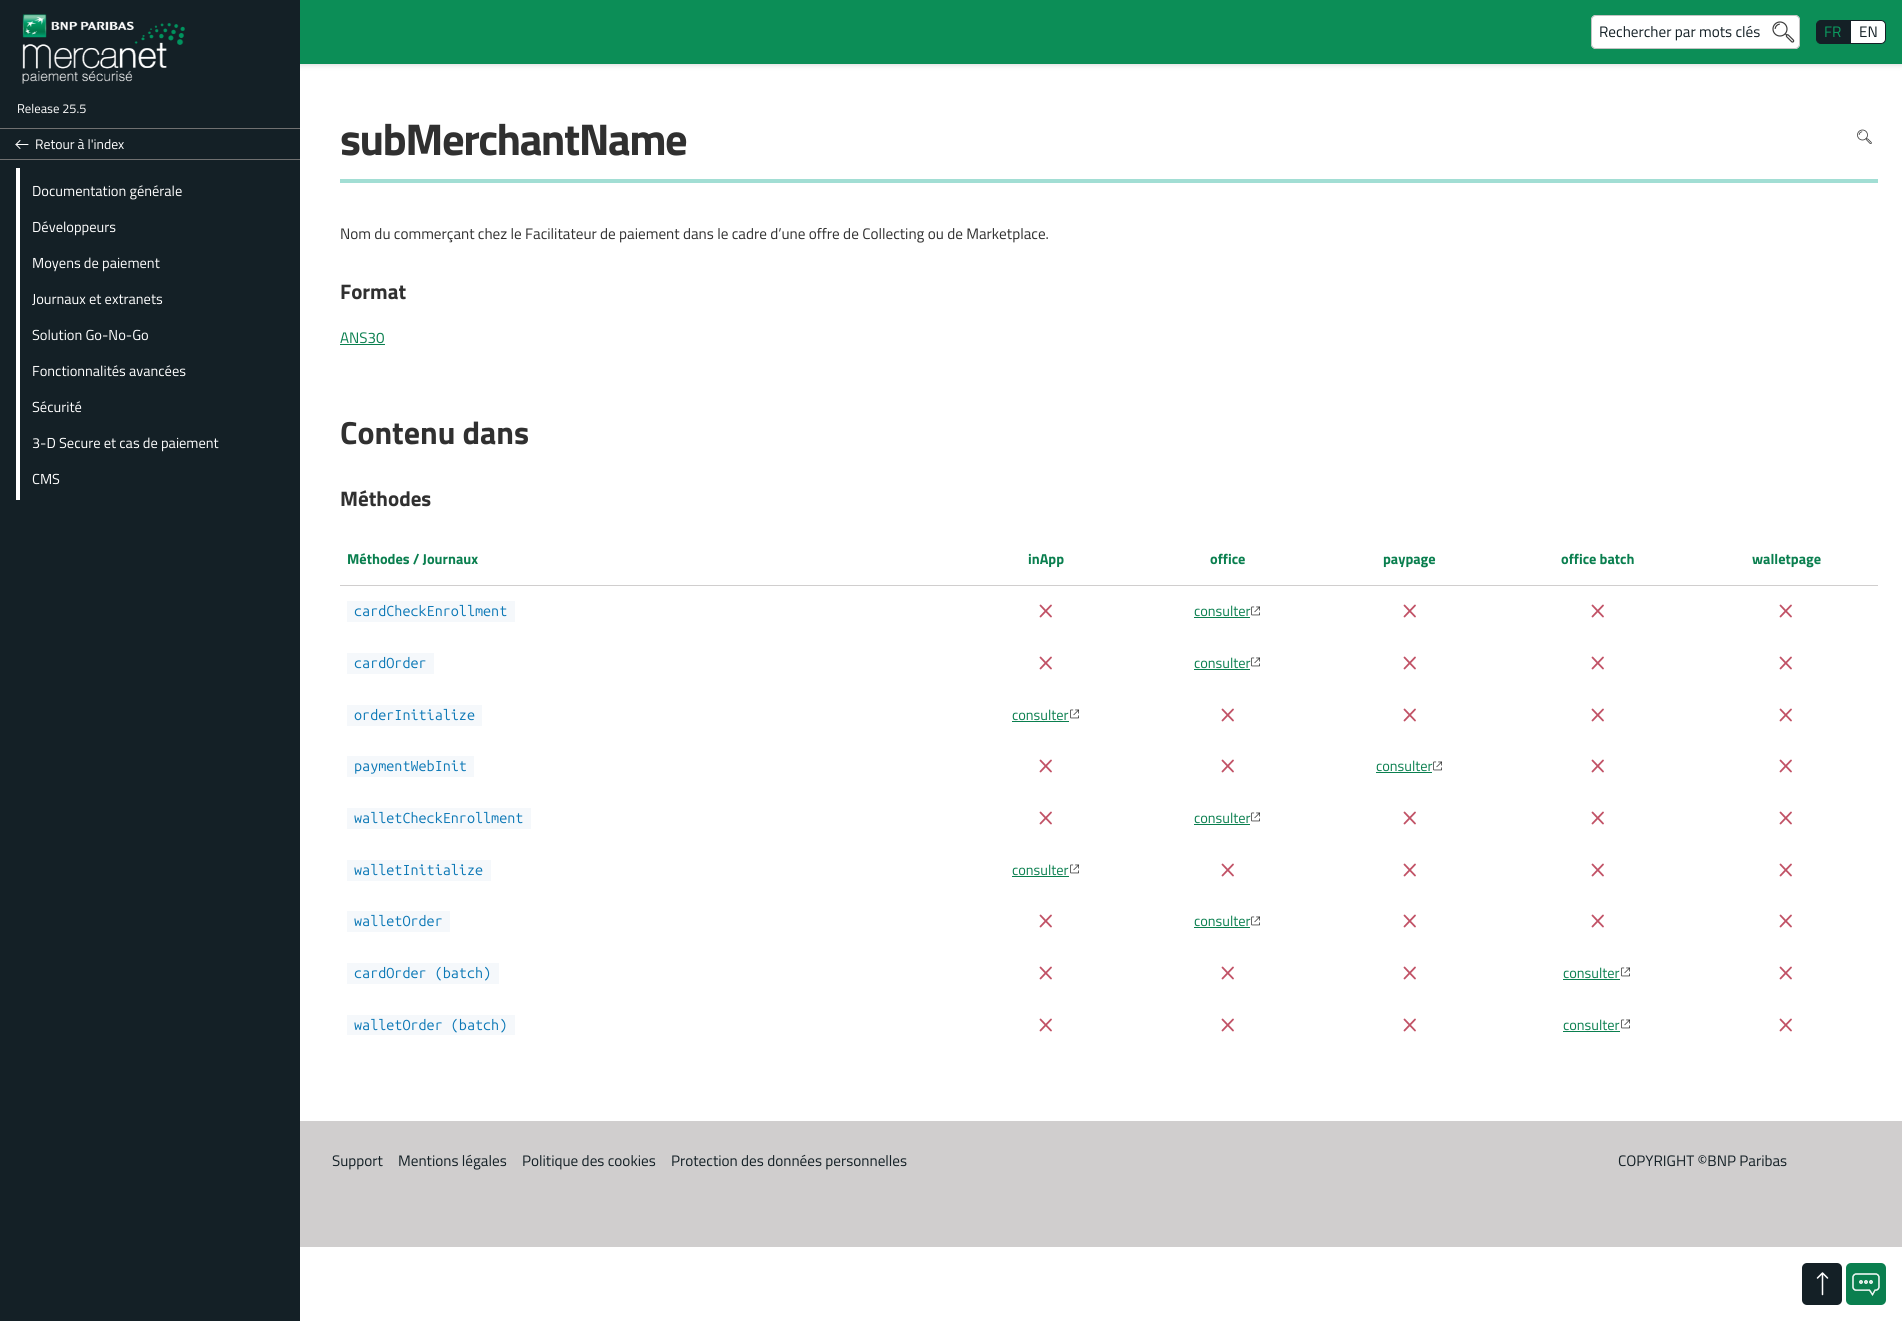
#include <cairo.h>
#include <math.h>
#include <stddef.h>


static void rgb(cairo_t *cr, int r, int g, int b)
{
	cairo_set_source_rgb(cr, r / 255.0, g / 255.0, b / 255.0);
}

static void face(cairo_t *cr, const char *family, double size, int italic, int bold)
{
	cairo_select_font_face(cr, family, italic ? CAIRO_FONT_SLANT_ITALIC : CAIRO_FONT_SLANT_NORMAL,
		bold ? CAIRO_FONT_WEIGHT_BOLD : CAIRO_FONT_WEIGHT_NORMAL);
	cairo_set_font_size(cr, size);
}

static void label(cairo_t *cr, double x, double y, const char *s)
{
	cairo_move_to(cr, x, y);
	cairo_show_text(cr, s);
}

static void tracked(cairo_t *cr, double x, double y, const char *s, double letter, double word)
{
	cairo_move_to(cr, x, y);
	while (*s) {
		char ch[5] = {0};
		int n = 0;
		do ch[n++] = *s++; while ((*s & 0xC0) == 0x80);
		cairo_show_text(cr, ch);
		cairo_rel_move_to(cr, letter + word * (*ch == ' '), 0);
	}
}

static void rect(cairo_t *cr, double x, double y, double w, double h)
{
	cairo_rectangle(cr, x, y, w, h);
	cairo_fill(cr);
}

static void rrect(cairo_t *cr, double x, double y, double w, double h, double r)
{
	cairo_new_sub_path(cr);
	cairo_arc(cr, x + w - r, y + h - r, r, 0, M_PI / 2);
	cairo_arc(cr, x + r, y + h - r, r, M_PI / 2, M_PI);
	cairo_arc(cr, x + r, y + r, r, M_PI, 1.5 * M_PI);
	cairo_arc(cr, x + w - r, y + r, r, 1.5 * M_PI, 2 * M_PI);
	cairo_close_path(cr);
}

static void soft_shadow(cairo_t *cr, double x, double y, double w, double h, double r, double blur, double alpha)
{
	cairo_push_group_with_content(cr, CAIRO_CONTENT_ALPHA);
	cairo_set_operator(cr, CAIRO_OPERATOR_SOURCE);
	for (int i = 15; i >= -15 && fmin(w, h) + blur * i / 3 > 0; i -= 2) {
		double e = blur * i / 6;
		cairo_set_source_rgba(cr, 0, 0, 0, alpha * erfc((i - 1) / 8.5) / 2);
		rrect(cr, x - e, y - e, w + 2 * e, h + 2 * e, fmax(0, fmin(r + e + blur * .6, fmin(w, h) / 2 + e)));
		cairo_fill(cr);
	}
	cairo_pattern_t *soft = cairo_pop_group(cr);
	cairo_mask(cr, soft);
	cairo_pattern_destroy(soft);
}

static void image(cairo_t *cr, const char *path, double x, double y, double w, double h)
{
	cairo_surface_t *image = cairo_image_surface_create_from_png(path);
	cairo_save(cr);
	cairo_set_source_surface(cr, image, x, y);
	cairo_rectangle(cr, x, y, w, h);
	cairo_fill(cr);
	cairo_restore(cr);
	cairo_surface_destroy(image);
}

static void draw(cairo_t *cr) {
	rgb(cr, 255, 255, 255);
	cairo_paint(cr);
	rgb(cr, 0, 0, 0);
	soft_shadow(cr, 0, 0, 1902, 64, 0, 3, 0.2);
	rgb(cr, 12, 142, 87);
	rect(cr, 300, 0, 1602, 64);
	rgb(cr, 255, 255, 255);
	rrect(cr, 1591, 15, 209, 34, 5);
	cairo_fill(cr);
	image(cr, "image0.png", 1772, 21, 23, 22);
	rrect(cr, 1591.5, 15.5, 208, 33, 4.5);
	rgb(cr, 195, 195, 195);
	cairo_set_line_width(cr, 1);
	cairo_stroke(cr);
	face(cr, "Titillium Web", 15.2, 0, 0);
	rgb(cr, 20, 32, 38);
	label(cr, 1599, 37, "Rechercher par mots clés");
	cairo_new_path(cr);
	cairo_move_to(cr, 1821, 20.5);
	cairo_line_to(cr, 1849.5, 20.5);
	cairo_line_to(cr, 1849.5, 43.5);
	cairo_line_to(cr, 1821, 43.5);
	cairo_curve_to(cr, 1818.5, 43.5, 1816.5, 41.5, 1816.5, 39);
	cairo_line_to(cr, 1816.5, 25);
	cairo_curve_to(cr, 1816.5, 22.5, 1818.5, 20.5, 1821, 20.5);
	cairo_close_path(cr);
	cairo_fill_preserve(cr);
	cairo_stroke(cr);
	rgb(cr, 11, 157, 96);
	label(cr, 1824, 37, "FR");
	rgb(cr, 255, 255, 255);
	cairo_new_path(cr);
	cairo_move_to(cr, 1850.5, 20.5);
	cairo_line_to(cr, 1881, 20.5);
	cairo_curve_to(cr, 1883.5, 20.5, 1885.5, 22.5, 1885.5, 25);
	cairo_line_to(cr, 1885.5, 39);
	cairo_curve_to(cr, 1885.5, 41.5, 1883.5, 43.5, 1881, 43.5);
	cairo_line_to(cr, 1850.5, 43.5);
	cairo_close_path(cr);
	cairo_fill_preserve(cr);
	rgb(cr, 20, 32, 38);
	cairo_stroke(cr);
	label(cr, 1859, 37, "EN");
	rect(cr, 0, 0, 300, 1321);
	image(cr, "image1.png", 22, 14, 163, 70);
	face(cr, "Titillium Web", 12.75, 0, 0);
	rgb(cr, 255, 255, 255);
	label(cr, 17, 113, "Release 25.5");
	image(cr, "image2.png", 15, 140, 14, 9);
	rgb(cr, 112, 112, 112);
	rect(cr, 0, 128, 300, 1);
	rect(cr, 0, 159, 300, 1);
	face(cr, "Titillium Web", 13.75, 0, 0);
	rgb(cr, 255, 255, 255);
	label(cr, 35, 149, "Retour à l'index");
	rect(cr, 16, 168, 4, 332);
	face(cr, "Titillium Web", 14.5, 0, 0);
	label(cr, 32, 196, "Documentation générale");
	label(cr, 32, 232, "Développeurs");
	label(cr, 32, 268, "Moyens de paiement");
	label(cr, 32, 304, "Journaux et extranets");
	label(cr, 32, 340, "Solution Go-No-Go");
	label(cr, 32, 376, "Fonctionnalités avancées");
	label(cr, 32, 412, "Sécurité");
	label(cr, 32, 448, "3-D Secure et cas de paiement");
	label(cr, 32, 484, "CMS");
	face(cr, "Titillium Web", 44.5, 0, 1);
	rgb(cr, 48, 48, 48);
	tracked(cr, 340, 155, "subMerchantName", -1.5, 0);
	image(cr, "image3.png", 1857, 129, 15, 15);
	rgb(cr, 162, 222, 212);
	rect(cr, 340, 179, 1538, 4);
	face(cr, "Titillium Web", 15.2, 0, 0);
	rgb(cr, 48, 48, 48);
	label(cr, 340, 239, "Nom du commerçant chez le Facilitateur de paiement dans le cadre d’une offre de Collecting ou de Marketplace.");
	face(cr, "Titillium Web", 21, 0, 1);
	label(cr, 340, 299, "Format");
	face(cr, "Titillium Web", 15.2, 0, 0);
	rgb(cr, 10, 127, 79);
	label(cr, 340, 343, "ANS30");
	rect(cr, 340, 344, 45, 1);
	face(cr, "Titillium Web", 32, 0, 1);
	rgb(cr, 48, 48, 48);
	label(cr, 340, 444, "Contenu dans");
	face(cr, "Titillium Web", 21, 0, 1);
	label(cr, 340, 506, "Méthodes");
	face(cr, "Titillium Web", 14.4, 0, 1);
	rgb(cr, 10, 127, 79);
	label(cr, 347, 564, "Méthodes / Journaux");
	label(cr, 1028, 564, "inApp");
	label(cr, 1210, 564, "office");
	label(cr, 1383, 564, "paypage");
	label(cr, 1561, 564, "office batch");
	label(cr, 1752, 564, "walletpage");
	rgb(cr, 208, 206, 206);
	rect(cr, 340, 585, 1539, 1);
	rgb(cr, 245, 248, 251);
	rect(cr, 347, 601, 168, 21);
	cairo_new_path(cr);
	cairo_move_to(cr, 1040.5, 605.5);
	cairo_line_to(cr, 1051, 616.5);
	cairo_move_to(cr, 1051, 605.5);
	cairo_line_to(cr, 1040.5, 616.5);
	rgb(cr, 193, 82, 102);
	cairo_set_line_width(cr, 1.8);
	cairo_set_line_cap(cr, CAIRO_LINE_CAP_ROUND);
	cairo_stroke(cr);
	cairo_new_path(cr);
	cairo_move_to(cr, 1404.5, 605.5);
	cairo_line_to(cr, 1415, 616.5);
	cairo_move_to(cr, 1415, 605.5);
	cairo_line_to(cr, 1404.5, 616.5);
	cairo_stroke(cr);
	cairo_new_path(cr);
	cairo_move_to(cr, 1592.5, 605.5);
	cairo_line_to(cr, 1603, 616.5);
	cairo_move_to(cr, 1603, 605.5);
	cairo_line_to(cr, 1592.5, 616.5);
	cairo_stroke(cr);
	cairo_new_path(cr);
	cairo_move_to(cr, 1780.5, 605.5);
	cairo_line_to(cr, 1791, 616.5);
	cairo_move_to(cr, 1791, 605.5);
	cairo_line_to(cr, 1780.5, 616.5);
	cairo_stroke(cr);
	cairo_rectangle(cr, 339.5, 584.5, 1539, 53);
	rgb(cr, 255, 255, 255);
	cairo_set_line_width(cr, 1);
	cairo_set_line_cap(cr, CAIRO_LINE_CAP_BUTT);
	cairo_stroke(cr);
	face(cr, "Ubuntu Mono", 14.4, 0, 0);
	rgb(cr, 12, 120, 182);
	label(cr, 354, 616, "cardCheckEnrollment");
	face(cr, "Titillium Web", 14.4, 0, 0);
	rgb(cr, 10, 127, 79);
	label(cr, 1194, 616, "consulter");
	rect(cr, 1194, 617, 56, 1);
	image(cr, "image4.png", 1251, 606, 9, 10);
	rgb(cr, 245, 248, 251);
	rect(cr, 347, 653, 87, 21);
	face(cr, "Ubuntu Mono", 14.4, 0, 0);
	rgb(cr, 12, 120, 182);
	label(cr, 354, 668, "cardOrder");
	cairo_new_path(cr);
	cairo_move_to(cr, 1040.5, 657.5);
	cairo_line_to(cr, 1051, 668.5);
	cairo_move_to(cr, 1051, 657.5);
	cairo_line_to(cr, 1040.5, 668.5);
	rgb(cr, 193, 82, 102);
	cairo_set_line_width(cr, 1.8);
	cairo_set_line_cap(cr, CAIRO_LINE_CAP_ROUND);
	cairo_stroke(cr);
	face(cr, "Titillium Web", 14.4, 0, 0);
	rgb(cr, 10, 127, 79);
	label(cr, 1194, 668, "consulter");
	rect(cr, 1194, 669, 56, 1);
	image(cr, "image4.png", 1251, 657, 9, 10);
	cairo_new_path(cr);
	cairo_move_to(cr, 1404.5, 657.5);
	cairo_line_to(cr, 1415, 668.5);
	cairo_move_to(cr, 1415, 657.5);
	cairo_line_to(cr, 1404.5, 668.5);
	rgb(cr, 193, 82, 102);
	cairo_stroke(cr);
	cairo_new_path(cr);
	cairo_move_to(cr, 1592.5, 657.5);
	cairo_line_to(cr, 1603, 668.5);
	cairo_move_to(cr, 1603, 657.5);
	cairo_line_to(cr, 1592.5, 668.5);
	cairo_stroke(cr);
	cairo_new_path(cr);
	cairo_move_to(cr, 1780.5, 657.5);
	cairo_line_to(cr, 1791, 668.5);
	cairo_move_to(cr, 1791, 657.5);
	cairo_line_to(cr, 1780.5, 668.5);
	cairo_stroke(cr);
	rgb(cr, 245, 248, 251);
	rect(cr, 347, 705, 135, 21);
	face(cr, "Ubuntu Mono", 14.4, 0, 0);
	rgb(cr, 12, 120, 182);
	label(cr, 354, 720, "orderInitialize");
	face(cr, "Titillium Web", 14.4, 0, 0);
	rgb(cr, 10, 127, 79);
	label(cr, 1012, 720, "consulter");
	rect(cr, 1012, 721, 57, 1);
	image(cr, "image4.png", 1070, 709, 9, 10);
	cairo_new_path(cr);
	cairo_move_to(cr, 1222.5, 709.5);
	cairo_line_to(cr, 1233, 720.5);
	cairo_move_to(cr, 1233, 709.5);
	cairo_line_to(cr, 1222.5, 720.5);
	rgb(cr, 193, 82, 102);
	cairo_stroke(cr);
	cairo_new_path(cr);
	cairo_move_to(cr, 1404.5, 709.5);
	cairo_line_to(cr, 1415, 720.5);
	cairo_move_to(cr, 1415, 709.5);
	cairo_line_to(cr, 1404.5, 720.5);
	cairo_stroke(cr);
	cairo_new_path(cr);
	cairo_move_to(cr, 1592.5, 709.5);
	cairo_line_to(cr, 1603, 720.5);
	cairo_move_to(cr, 1603, 709.5);
	cairo_line_to(cr, 1592.5, 720.5);
	cairo_stroke(cr);
	cairo_new_path(cr);
	cairo_move_to(cr, 1780.5, 709.5);
	cairo_line_to(cr, 1791, 720.5);
	cairo_move_to(cr, 1791, 709.5);
	cairo_line_to(cr, 1780.5, 720.5);
	cairo_stroke(cr);
	rgb(cr, 245, 248, 251);
	rect(cr, 347, 756, 127, 21);
	face(cr, "Ubuntu Mono", 14.4, 0, 0);
	rgb(cr, 12, 120, 182);
	label(cr, 354, 771, "paymentWebInit");
	cairo_new_path(cr);
	cairo_move_to(cr, 1040.5, 760.5);
	cairo_line_to(cr, 1051, 771.5);
	cairo_move_to(cr, 1051, 760.5);
	cairo_line_to(cr, 1040.5, 771.5);
	rgb(cr, 193, 82, 102);
	cairo_stroke(cr);
	cairo_new_path(cr);
	cairo_move_to(cr, 1222.5, 760.5);
	cairo_line_to(cr, 1233, 771.5);
	cairo_move_to(cr, 1233, 760.5);
	cairo_line_to(cr, 1222.5, 771.5);
	cairo_stroke(cr);
	face(cr, "Titillium Web", 14.4, 0, 0);
	rgb(cr, 10, 127, 79);
	label(cr, 1376, 771, "consulter");
	rect(cr, 1376, 772, 56, 1);
	image(cr, "image4.png", 1433, 761, 9, 10);
	cairo_new_path(cr);
	cairo_move_to(cr, 1592.5, 760.5);
	cairo_line_to(cr, 1603, 771.5);
	cairo_move_to(cr, 1603, 760.5);
	cairo_line_to(cr, 1592.5, 771.5);
	rgb(cr, 193, 82, 102);
	cairo_stroke(cr);
	cairo_new_path(cr);
	cairo_move_to(cr, 1780.5, 760.5);
	cairo_line_to(cr, 1791, 771.5);
	cairo_move_to(cr, 1791, 760.5);
	cairo_line_to(cr, 1780.5, 771.5);
	cairo_stroke(cr);
	rgb(cr, 245, 248, 251);
	rect(cr, 347, 808, 184, 21);
	face(cr, "Ubuntu Mono", 14.4, 0, 0);
	rgb(cr, 12, 120, 182);
	label(cr, 354, 823, "walletCheckEnrollment");
	cairo_new_path(cr);
	cairo_move_to(cr, 1040.5, 812.5);
	cairo_line_to(cr, 1051, 823.5);
	cairo_move_to(cr, 1051, 812.5);
	cairo_line_to(cr, 1040.5, 823.5);
	rgb(cr, 193, 82, 102);
	cairo_stroke(cr);
	face(cr, "Titillium Web", 14.4, 0, 0);
	rgb(cr, 10, 127, 79);
	label(cr, 1194, 823, "consulter");
	rect(cr, 1194, 824, 56, 1);
	image(cr, "image4.png", 1251, 812, 9, 10);
	cairo_new_path(cr);
	cairo_move_to(cr, 1404.5, 812.5);
	cairo_line_to(cr, 1415, 823.5);
	cairo_move_to(cr, 1415, 812.5);
	cairo_line_to(cr, 1404.5, 823.5);
	rgb(cr, 193, 82, 102);
	cairo_stroke(cr);
	cairo_new_path(cr);
	cairo_move_to(cr, 1592.5, 812.5);
	cairo_line_to(cr, 1603, 823.5);
	cairo_move_to(cr, 1603, 812.5);
	cairo_line_to(cr, 1592.5, 823.5);
	cairo_stroke(cr);
	cairo_new_path(cr);
	cairo_move_to(cr, 1780.5, 812.5);
	cairo_line_to(cr, 1791, 823.5);
	cairo_move_to(cr, 1791, 812.5);
	cairo_line_to(cr, 1780.5, 823.5);
	cairo_stroke(cr);
	rgb(cr, 245, 248, 251);
	rect(cr, 347, 860, 144, 21);
	face(cr, "Ubuntu Mono", 14.4, 0, 0);
	rgb(cr, 12, 120, 182);
	label(cr, 354, 875, "walletInitialize");
	face(cr, "Titillium Web", 14.4, 0, 0);
	rgb(cr, 10, 127, 79);
	label(cr, 1012, 875, "consulter");
	rect(cr, 1012, 876, 57, 1);
	image(cr, "image4.png", 1070, 864, 9, 10);
	cairo_new_path(cr);
	cairo_move_to(cr, 1222.5, 864.5);
	cairo_line_to(cr, 1233, 875.5);
	cairo_move_to(cr, 1233, 864.5);
	cairo_line_to(cr, 1222.5, 875.5);
	rgb(cr, 193, 82, 102);
	cairo_stroke(cr);
	cairo_new_path(cr);
	cairo_move_to(cr, 1404.5, 864.5);
	cairo_line_to(cr, 1415, 875.5);
	cairo_move_to(cr, 1415, 864.5);
	cairo_line_to(cr, 1404.5, 875.5);
	cairo_stroke(cr);
	cairo_new_path(cr);
	cairo_move_to(cr, 1592.5, 864.5);
	cairo_line_to(cr, 1603, 875.5);
	cairo_move_to(cr, 1603, 864.5);
	cairo_line_to(cr, 1592.5, 875.5);
	cairo_stroke(cr);
	cairo_new_path(cr);
	cairo_move_to(cr, 1780.5, 864.5);
	cairo_line_to(cr, 1791, 875.5);
	cairo_move_to(cr, 1791, 864.5);
	cairo_line_to(cr, 1780.5, 875.5);
	cairo_stroke(cr);
	rgb(cr, 245, 248, 251);
	rect(cr, 347, 911, 103, 21);
	face(cr, "Ubuntu Mono", 14.4, 0, 0);
	rgb(cr, 12, 120, 182);
	label(cr, 354, 926, "walletOrder");
	cairo_new_path(cr);
	cairo_move_to(cr, 1040.5, 915.5);
	cairo_line_to(cr, 1051, 926.5);
	cairo_move_to(cr, 1051, 915.5);
	cairo_line_to(cr, 1040.5, 926.5);
	rgb(cr, 193, 82, 102);
	cairo_stroke(cr);
	face(cr, "Titillium Web", 14.4, 0, 0);
	rgb(cr, 10, 127, 79);
	label(cr, 1194, 926, "consulter");
	rect(cr, 1194, 927, 56, 1);
	image(cr, "image4.png", 1251, 916, 9, 10);
	cairo_new_path(cr);
	cairo_move_to(cr, 1404.5, 915.5);
	cairo_line_to(cr, 1415, 926.5);
	cairo_move_to(cr, 1415, 915.5);
	cairo_line_to(cr, 1404.5, 926.5);
	rgb(cr, 193, 82, 102);
	cairo_stroke(cr);
	cairo_new_path(cr);
	cairo_move_to(cr, 1592.5, 915.5);
	cairo_line_to(cr, 1603, 926.5);
	cairo_move_to(cr, 1603, 915.5);
	cairo_line_to(cr, 1592.5, 926.5);
	cairo_stroke(cr);
	cairo_new_path(cr);
	cairo_move_to(cr, 1780.5, 915.5);
	cairo_line_to(cr, 1791, 926.5);
	cairo_move_to(cr, 1791, 915.5);
	cairo_line_to(cr, 1780.5, 926.5);
	cairo_stroke(cr);
	rgb(cr, 245, 248, 251);
	rect(cr, 347, 963, 152, 21);
	face(cr, "Ubuntu Mono", 14.4, 0, 0);
	rgb(cr, 12, 120, 182);
	label(cr, 354, 978, "cardOrder (batch)");
	cairo_new_path(cr);
	cairo_move_to(cr, 1040.5, 967.5);
	cairo_line_to(cr, 1051, 978.5);
	cairo_move_to(cr, 1051, 967.5);
	cairo_line_to(cr, 1040.5, 978.5);
	rgb(cr, 193, 82, 102);
	cairo_stroke(cr);
	cairo_new_path(cr);
	cairo_move_to(cr, 1222.5, 967.5);
	cairo_line_to(cr, 1233, 978.5);
	cairo_move_to(cr, 1233, 967.5);
	cairo_line_to(cr, 1222.5, 978.5);
	cairo_stroke(cr);
	cairo_new_path(cr);
	cairo_move_to(cr, 1404.5, 967.5);
	cairo_line_to(cr, 1415, 978.5);
	cairo_move_to(cr, 1415, 967.5);
	cairo_line_to(cr, 1404.5, 978.5);
	cairo_stroke(cr);
	face(cr, "Titillium Web", 14.4, 0, 0);
	rgb(cr, 10, 127, 79);
	label(cr, 1563, 978, "consulter");
	rect(cr, 1563, 979, 57, 1);
	image(cr, "image4.png", 1621, 967, 9, 10);
	cairo_new_path(cr);
	cairo_move_to(cr, 1780.5, 967.5);
	cairo_line_to(cr, 1791, 978.5);
	cairo_move_to(cr, 1791, 967.5);
	cairo_line_to(cr, 1780.5, 978.5);
	rgb(cr, 193, 82, 102);
	cairo_stroke(cr);
	rgb(cr, 245, 248, 251);
	rect(cr, 347, 1015, 168, 20);
	face(cr, "Ubuntu Mono", 14.4, 0, 0);
	rgb(cr, 12, 120, 182);
	label(cr, 354, 1030, "walletOrder (batch)");
	cairo_new_path(cr);
	cairo_move_to(cr, 1040.5, 1019.5);
	cairo_line_to(cr, 1051, 1030.5);
	cairo_move_to(cr, 1051, 1019.5);
	cairo_line_to(cr, 1040.5, 1030.5);
	rgb(cr, 193, 82, 102);
	cairo_stroke(cr);
	cairo_new_path(cr);
	cairo_move_to(cr, 1222.5, 1019.5);
	cairo_line_to(cr, 1233, 1030.5);
	cairo_move_to(cr, 1233, 1019.5);
	cairo_line_to(cr, 1222.5, 1030.5);
	cairo_stroke(cr);
	cairo_new_path(cr);
	cairo_move_to(cr, 1404.5, 1019.5);
	cairo_line_to(cr, 1415, 1030.5);
	cairo_move_to(cr, 1415, 1019.5);
	cairo_line_to(cr, 1404.5, 1030.5);
	cairo_stroke(cr);
	face(cr, "Titillium Web", 14.4, 0, 0);
	rgb(cr, 10, 127, 79);
	label(cr, 1563, 1030, "consulter");
	rect(cr, 1563, 1031, 57, 1);
	image(cr, "image4.png", 1621, 1019, 9, 10);
	cairo_new_path(cr);
	cairo_move_to(cr, 1780.5, 1019.5);
	cairo_line_to(cr, 1791, 1030.5);
	cairo_move_to(cr, 1791, 1019.5);
	cairo_line_to(cr, 1780.5, 1030.5);
	rgb(cr, 193, 82, 102);
	cairo_stroke(cr);
	rgb(cr, 20, 32, 38);
	rrect(cr, 1802, 1263, 40, 42, 5);
	cairo_fill(cr);
	cairo_new_path(cr);
	cairo_move_to(cr, 1817.5, 1278);
	cairo_line_to(cr, 1822.5, 1273);
	cairo_line_to(cr, 1827.5, 1278);
	cairo_move_to(cr, 1822.5, 1294.5);
	cairo_line_to(cr, 1822.5, 1274.5);
	rgb(cr, 255, 255, 255);
	cairo_set_line_width(cr, 1.5);
	cairo_set_line_join(cr, CAIRO_LINE_JOIN_ROUND);
	cairo_stroke(cr);
	rgb(cr, 10, 127, 79);
	rrect(cr, 1846, 1263, 40, 42, 5);
	cairo_fill(cr);
	image(cr, "image5.png", 1852, 1273, 28, 23);
	rgb(cr, 208, 206, 206);
	rect(cr, 300, 1121, 1602, 126);
	face(cr, "Titillium Web", 15.2, 0, 0);
	rgb(cr, 20, 32, 38);
	label(cr, 332, 1166, "Support");
	label(cr, 398, 1166, "Mentions légales");
	label(cr, 522, 1166, "Politique des cookies");
	label(cr, 671, 1166, "Protection des données personnelles");
	label(cr, 1618, 1166, "COPYRIGHT ©BNP Paribas");
}

int main(void) {
	cairo_surface_t *surface = cairo_image_surface_create(CAIRO_FORMAT_RGB24, 1902, 1321);
	cairo_t *cr = cairo_create(surface);
	cairo_font_options_t *options = cairo_font_options_create();
	cairo_font_options_set_hint_metrics(options, CAIRO_HINT_METRICS_OFF);
	cairo_font_options_set_hint_style(options, CAIRO_HINT_STYLE_NONE);
	cairo_set_font_options(cr, options);
	cairo_set_miter_limit(cr, 4);
	draw(cr);
	cairo_surface_write_to_png(surface, "render.png");
	cairo_font_options_destroy(options);
	cairo_destroy(cr);
	cairo_surface_destroy(surface);
	return 0;
}
